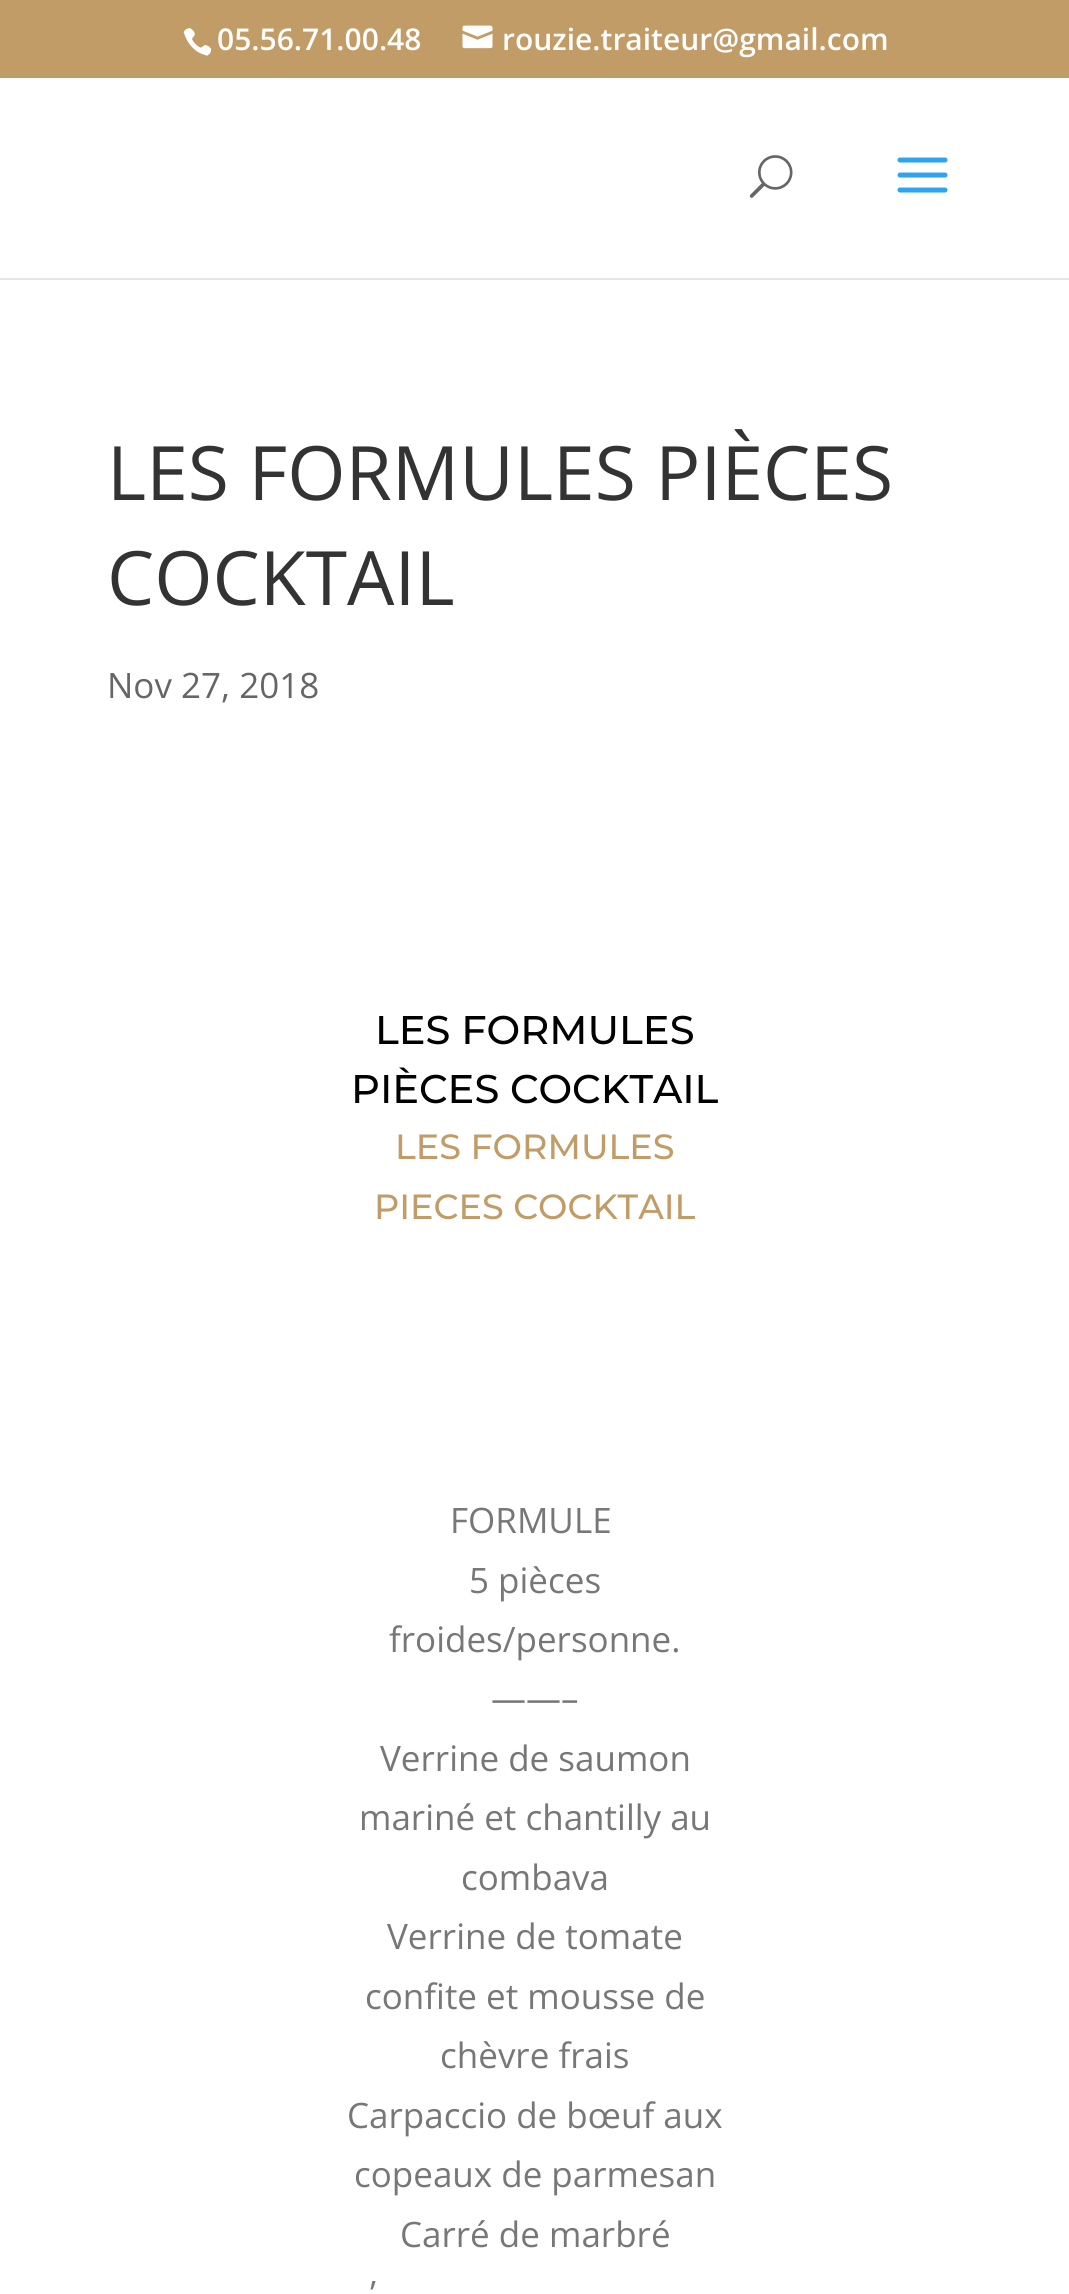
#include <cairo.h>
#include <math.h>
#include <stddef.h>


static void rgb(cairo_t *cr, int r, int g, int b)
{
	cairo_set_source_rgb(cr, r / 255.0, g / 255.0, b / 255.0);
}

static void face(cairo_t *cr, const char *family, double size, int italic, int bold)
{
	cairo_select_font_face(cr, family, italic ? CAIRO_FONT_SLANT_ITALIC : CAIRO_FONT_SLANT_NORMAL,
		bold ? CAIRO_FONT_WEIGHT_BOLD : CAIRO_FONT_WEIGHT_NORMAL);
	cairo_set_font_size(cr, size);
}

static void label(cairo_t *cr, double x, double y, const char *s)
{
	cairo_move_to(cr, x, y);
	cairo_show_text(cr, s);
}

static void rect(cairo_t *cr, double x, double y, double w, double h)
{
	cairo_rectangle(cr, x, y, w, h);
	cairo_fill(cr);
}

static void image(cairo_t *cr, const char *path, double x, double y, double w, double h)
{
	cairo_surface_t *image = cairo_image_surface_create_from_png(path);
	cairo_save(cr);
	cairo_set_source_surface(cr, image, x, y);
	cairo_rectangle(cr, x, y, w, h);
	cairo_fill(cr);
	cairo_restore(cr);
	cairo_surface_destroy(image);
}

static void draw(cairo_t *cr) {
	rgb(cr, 255, 255, 255);
	cairo_paint(cr);
	rgb(cr, 194, 156, 103);
	rect(cr, 0, 0, 1069, 78);
	image(cr, "image0.png", 183, 28, 29, 28);
	face(cr, "Open Sans SemiBold", 30, 0, 0);
	rgb(cr, 255, 255, 255);
	label(cr, 217, 50, "05.56.71.00.48");
	image(cr, "image1.png", 462, 25, 31, 24);
	label(cr, 502, 50, "rouzie.traiteur@gmail.com");
	rgb(cr, 230, 230, 230);
	rect(cr, 0, 278, 1069, 2);
	image(cr, "image2.png", 749, 155, 44, 43);
	image(cr, "image3.png", 897, 157, 51, 36);
	face(cr, "Open Sans", 75, 0, 0);
	rgb(cr, 51, 51, 51);
	label(cr, 107, 500, "LES FORMULES PIÈCES");
	label(cr, 107, 605, "COCKTAIL");
	face(cr, "Open Sans", 35, 0, 0);
	rgb(cr, 102, 102, 102);
	label(cr, 107, 698, "Nov 27, 2018");
	face(cr, "Montserrat Thin", 40, 0, 0);
	rgb(cr, 0, 0, 0);
	label(cr, 375, 1044, "LES FORMULES");
	label(cr, 351, 1103, "PIÈCES COCKTAIL");
	face(cr, "Montserrat Thin", 35, 0, 0);
	rgb(cr, 194, 156, 103);
	label(cr, 395, 1159, "LES FORMULES");
	label(cr, 374, 1219, "PIECES COCKTAIL");
	face(cr, "Open Sans", 35, 0, 0);
	rgb(cr, 119, 119, 119);
	label(cr, 450, 1533, "FORMULE");
	label(cr, 469, 1593, "5 pièces");
	label(cr, 389, 1652, "froides/personne.");
	label(cr, 491, 1711, "——–");
	label(cr, 380, 1771, "Verrine de saumon");
	label(cr, 359, 1830, "mariné et chantilly au");
	label(cr, 461, 1890, "combava");
	label(cr, 387, 1949, "Verrine de tomate");
	label(cr, 365, 2009, "confite et mousse de");
	label(cr, 440, 2068, "chèvre frais");
	label(cr, 347, 2128, "Carpaccio de bœuf aux");
	label(cr, 354, 2187, "copeaux de parmesan");
	label(cr, 400, 2247, "Carré de marbré");
	label(cr, 370, 2306, "’");
}

int main(void) {
	cairo_surface_t *surface = cairo_image_surface_create(CAIRO_FORMAT_RGB24, 1069, 2294);
	cairo_t *cr = cairo_create(surface);
	cairo_font_options_t *options = cairo_font_options_create();
	cairo_font_options_set_hint_metrics(options, CAIRO_HINT_METRICS_OFF);
	cairo_font_options_set_hint_style(options, CAIRO_HINT_STYLE_NONE);
	cairo_set_font_options(cr, options);
	cairo_set_miter_limit(cr, 4);
	draw(cr);
	cairo_surface_write_to_png(surface, "render.png");
	cairo_font_options_destroy(options);
	cairo_destroy(cr);
	cairo_surface_destroy(surface);
	return 0;
}
